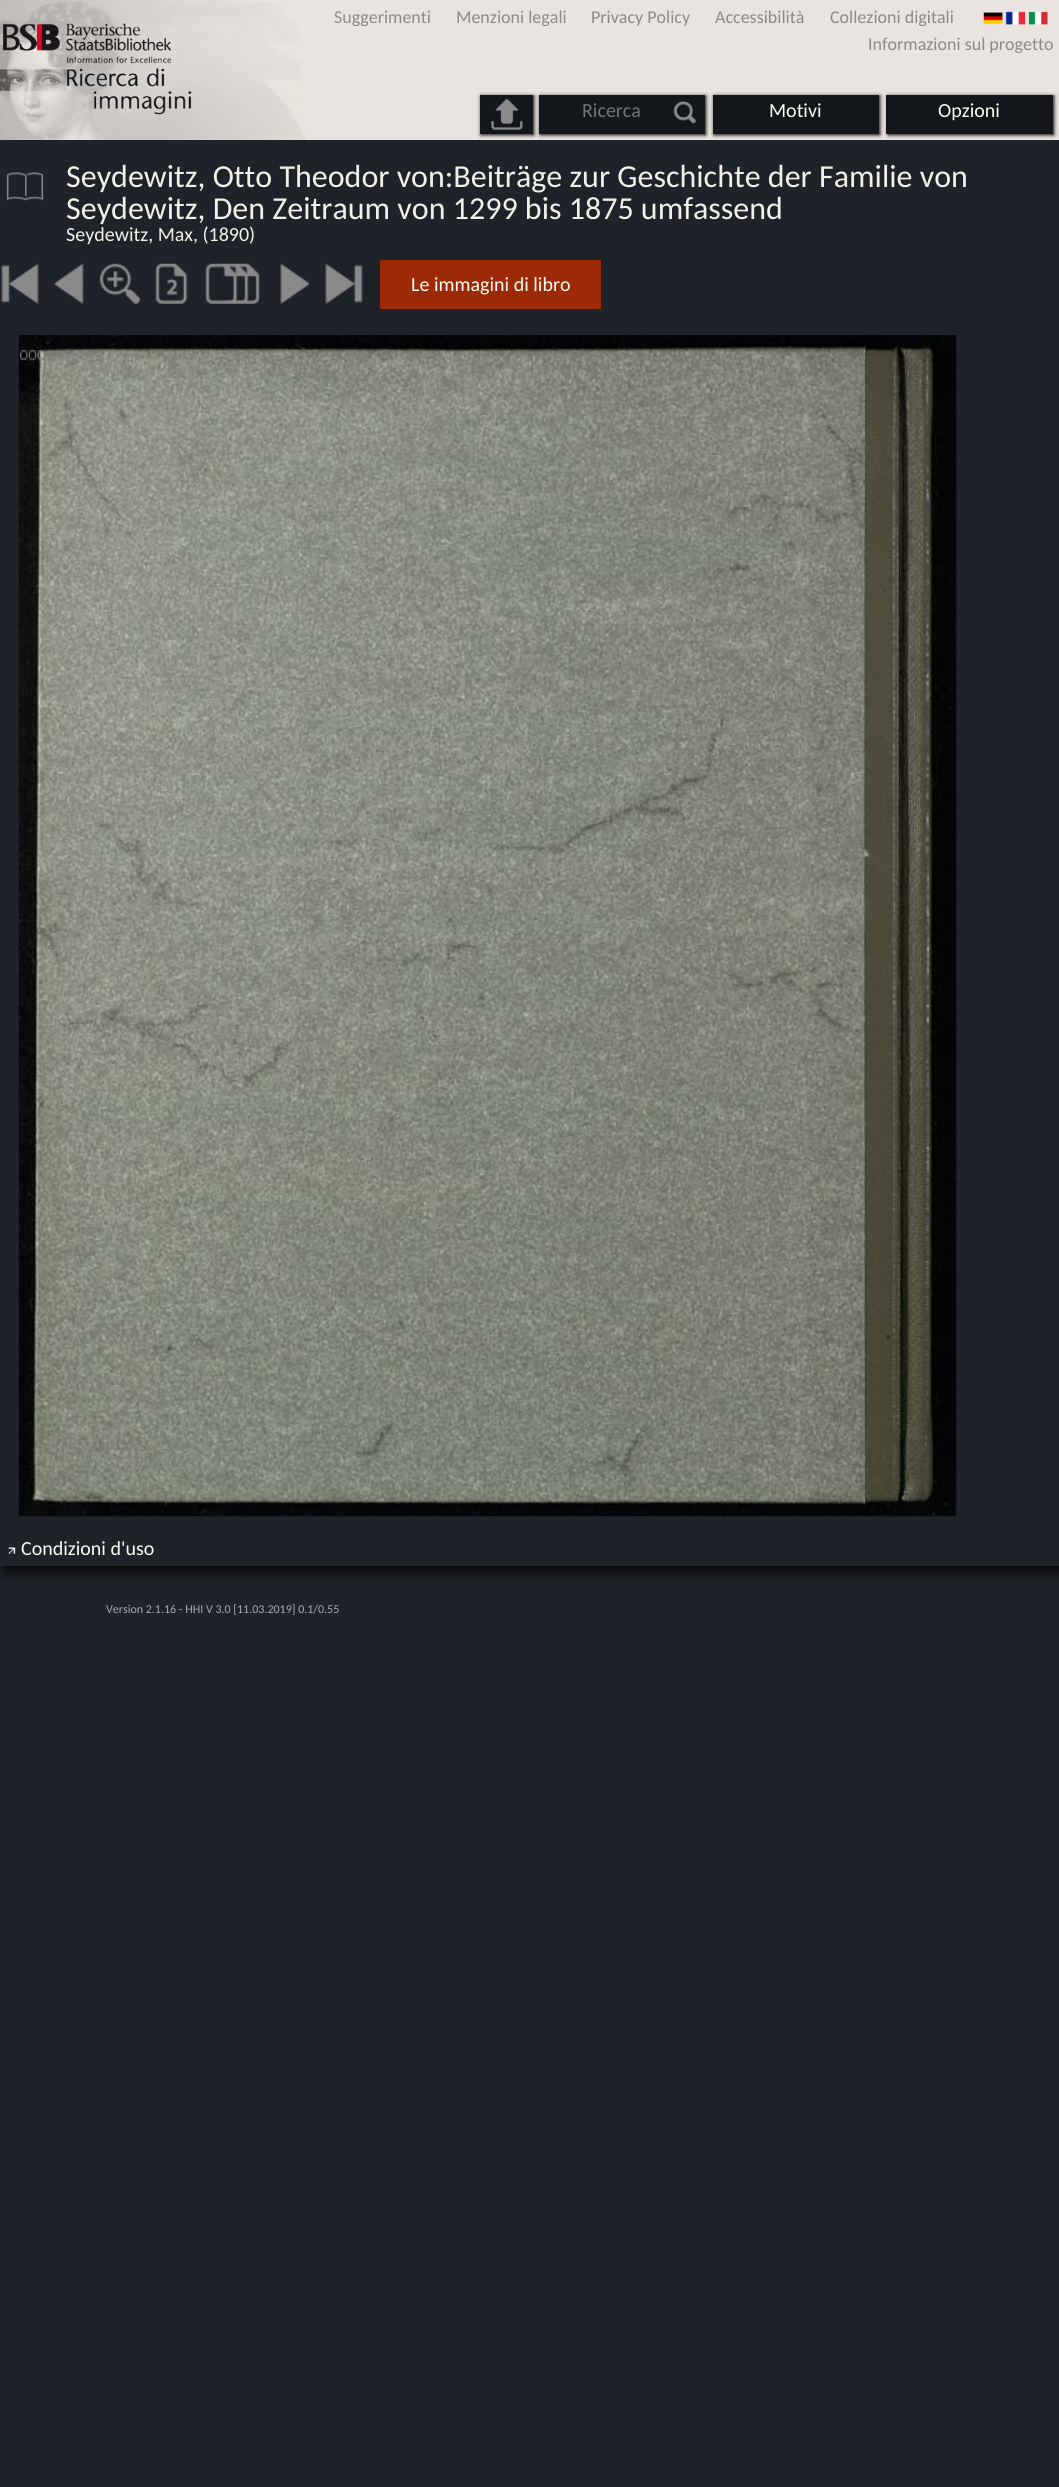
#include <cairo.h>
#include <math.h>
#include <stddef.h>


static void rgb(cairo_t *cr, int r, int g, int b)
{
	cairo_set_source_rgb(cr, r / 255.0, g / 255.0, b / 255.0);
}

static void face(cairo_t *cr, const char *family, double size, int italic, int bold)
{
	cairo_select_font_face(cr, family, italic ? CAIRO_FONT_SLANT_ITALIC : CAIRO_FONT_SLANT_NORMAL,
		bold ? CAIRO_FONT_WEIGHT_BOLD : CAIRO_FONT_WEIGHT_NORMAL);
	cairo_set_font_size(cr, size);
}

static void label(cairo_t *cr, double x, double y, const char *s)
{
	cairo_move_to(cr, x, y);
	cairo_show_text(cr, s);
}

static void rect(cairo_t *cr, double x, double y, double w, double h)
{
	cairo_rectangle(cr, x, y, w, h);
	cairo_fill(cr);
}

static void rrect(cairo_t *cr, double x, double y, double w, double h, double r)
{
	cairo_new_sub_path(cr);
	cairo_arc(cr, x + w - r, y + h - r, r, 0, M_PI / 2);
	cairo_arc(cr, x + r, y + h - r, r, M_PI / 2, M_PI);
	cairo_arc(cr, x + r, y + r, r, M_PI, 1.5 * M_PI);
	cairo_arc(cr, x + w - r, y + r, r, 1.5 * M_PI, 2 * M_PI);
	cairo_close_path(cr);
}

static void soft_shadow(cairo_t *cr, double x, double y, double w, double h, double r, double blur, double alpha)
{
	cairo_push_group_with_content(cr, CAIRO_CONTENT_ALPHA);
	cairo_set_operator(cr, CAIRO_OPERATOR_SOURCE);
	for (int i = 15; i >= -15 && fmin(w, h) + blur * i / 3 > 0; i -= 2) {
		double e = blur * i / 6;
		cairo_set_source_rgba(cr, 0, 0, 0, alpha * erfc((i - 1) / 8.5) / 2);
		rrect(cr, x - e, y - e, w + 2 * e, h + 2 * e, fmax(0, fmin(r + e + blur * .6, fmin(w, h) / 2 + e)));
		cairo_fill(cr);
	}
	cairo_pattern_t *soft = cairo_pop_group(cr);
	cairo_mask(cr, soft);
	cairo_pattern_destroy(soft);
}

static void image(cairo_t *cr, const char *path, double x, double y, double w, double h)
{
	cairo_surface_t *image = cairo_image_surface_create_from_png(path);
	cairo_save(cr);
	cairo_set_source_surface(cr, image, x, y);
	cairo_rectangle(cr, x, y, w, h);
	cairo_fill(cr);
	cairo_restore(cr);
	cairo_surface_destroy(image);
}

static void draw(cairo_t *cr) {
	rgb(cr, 30, 35, 42);
	cairo_paint(cr);
	cairo_save(cr);
	cairo_rectangle(cr, 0, 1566, 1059, 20);
	cairo_clip(cr);
	rgb(cr, 0, 0, 0);
	soft_shadow(cr, 5, 5, 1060, 1566, 0, 7.5, 1);
	cairo_restore(cr);
	rgb(cr, 233, 228, 224);
	rect(cr, 0, 0, 1059, 140);
	image(cr, "image0.png", 0, 0, 306, 140);
	face(cr, "Carlito", 18, 0, 0);
	rgb(cr, 138, 138, 138);
	label(cr, 334, 23, "Suggerimenti");
	label(cr, 456, 23, "Menzioni legali");
	label(cr, 591, 23, "Privacy Policy");
	label(cr, 715, 23, "Accessibilità");
	label(cr, 830, 23, "Collezioni digitali");
	label(cr, 868, 50, "Informazioni sul progetto");
	image(cr, "image1.png", 983, 11, 65, 14);
	rgb(cr, 0, 0, 0);
	soft_shadow(cr, 540, 96, 166, 39, 0, 2, 1);
	rgb(cr, 19, 22, 26);
	rect(cr, 539, 95, 166, 39);
	rgb(cr, 0, 0, 0);
	soft_shadow(cr, 481, 96, 53, 39, 0, 2, 1);
	rgb(cr, 19, 22, 26);
	rect(cr, 480, 95, 53, 39);
	image(cr, "image2.png", 491, 98, 32, 32);
	face(cr, "Carlito", 20, 0, 0);
	rgb(cr, 117, 117, 117);
	label(cr, 582, 117, "Ricerca");
	image(cr, "image3.png", 673, 101, 23, 23);
	rgb(cr, 0, 0, 0);
	soft_shadow(cr, 888, 96, 166, 39, 0, 2, 1);
	rgb(cr, 19, 22, 26);
	rect(cr, 886, 95, 167, 39);
	rgb(cr, 0, 0, 0);
	soft_shadow(cr, 714, 96, 166, 39, 0, 2, 1);
	rgb(cr, 19, 22, 26);
	rect(cr, 713, 95, 166, 39);
	rgb(cr, 252, 252, 242);
	label(cr, 769, 117, "Motivi");
	label(cr, 938, 117, "Opzioni");
	image(cr, "image4.png", 6, 172, 38, 29);
	face(cr, "Carlito", 32, 0, 0);
	rgb(cr, 241, 241, 232);
	label(cr, 66, 187, "Seydewitz, Otto Theodor von:Beiträge zur Geschichte der Familie von");
	label(cr, 66, 219, "Seydewitz, Den Zeitraum von 1299 bis 1875 umfassend");
	face(cr, "Carlito", 20, 0, 0);
	label(cr, 66, 241, "Seydewitz, Max, (1890)");
	image(cr, "image5.png", 1, 263, 38, 41);
	image(cr, "image6.png", 54, 263, 30, 41);
	image(cr, "image7.png", 100, 263, 40, 41);
	image(cr, "image8.png", 155, 263, 33, 41);
	image(cr, "image9.png", 205, 263, 55, 41);
	image(cr, "image10.png", 280, 263, 29, 41);
	image(cr, "image11.png", 325, 263, 38, 41);
	rgb(cr, 156, 42, 7);
	rect(cr, 380, 260, 221, 49);
	rgb(cr, 252, 252, 242);
	label(cr, 411, 291, "Le immagini di libro");
	image(cr, "image12.png", 18, 335, 939, 1182);
	image(cr, "image13.png", 8, 1547, 8, 7);
	label(cr, 21, 1555, "Condizioni d'uso");
	face(cr, "Carlito", 12, 0, 0);
	rgb(cr, 169, 169, 169);
	label(cr, 106, 1613, "Version 2.1.16 - HHI V 3.0 [11.03.2019] 0.1/0.55");
}

int main(void) {
	cairo_surface_t *surface = cairo_image_surface_create(CAIRO_FORMAT_RGB24, 1059, 2487);
	cairo_t *cr = cairo_create(surface);
	cairo_font_options_t *options = cairo_font_options_create();
	cairo_font_options_set_hint_metrics(options, CAIRO_HINT_METRICS_OFF);
	cairo_font_options_set_hint_style(options, CAIRO_HINT_STYLE_NONE);
	cairo_set_font_options(cr, options);
	cairo_set_miter_limit(cr, 4);
	draw(cr);
	cairo_surface_write_to_png(surface, "render.png");
	cairo_font_options_destroy(options);
	cairo_destroy(cr);
	cairo_surface_destroy(surface);
	return 0;
}
